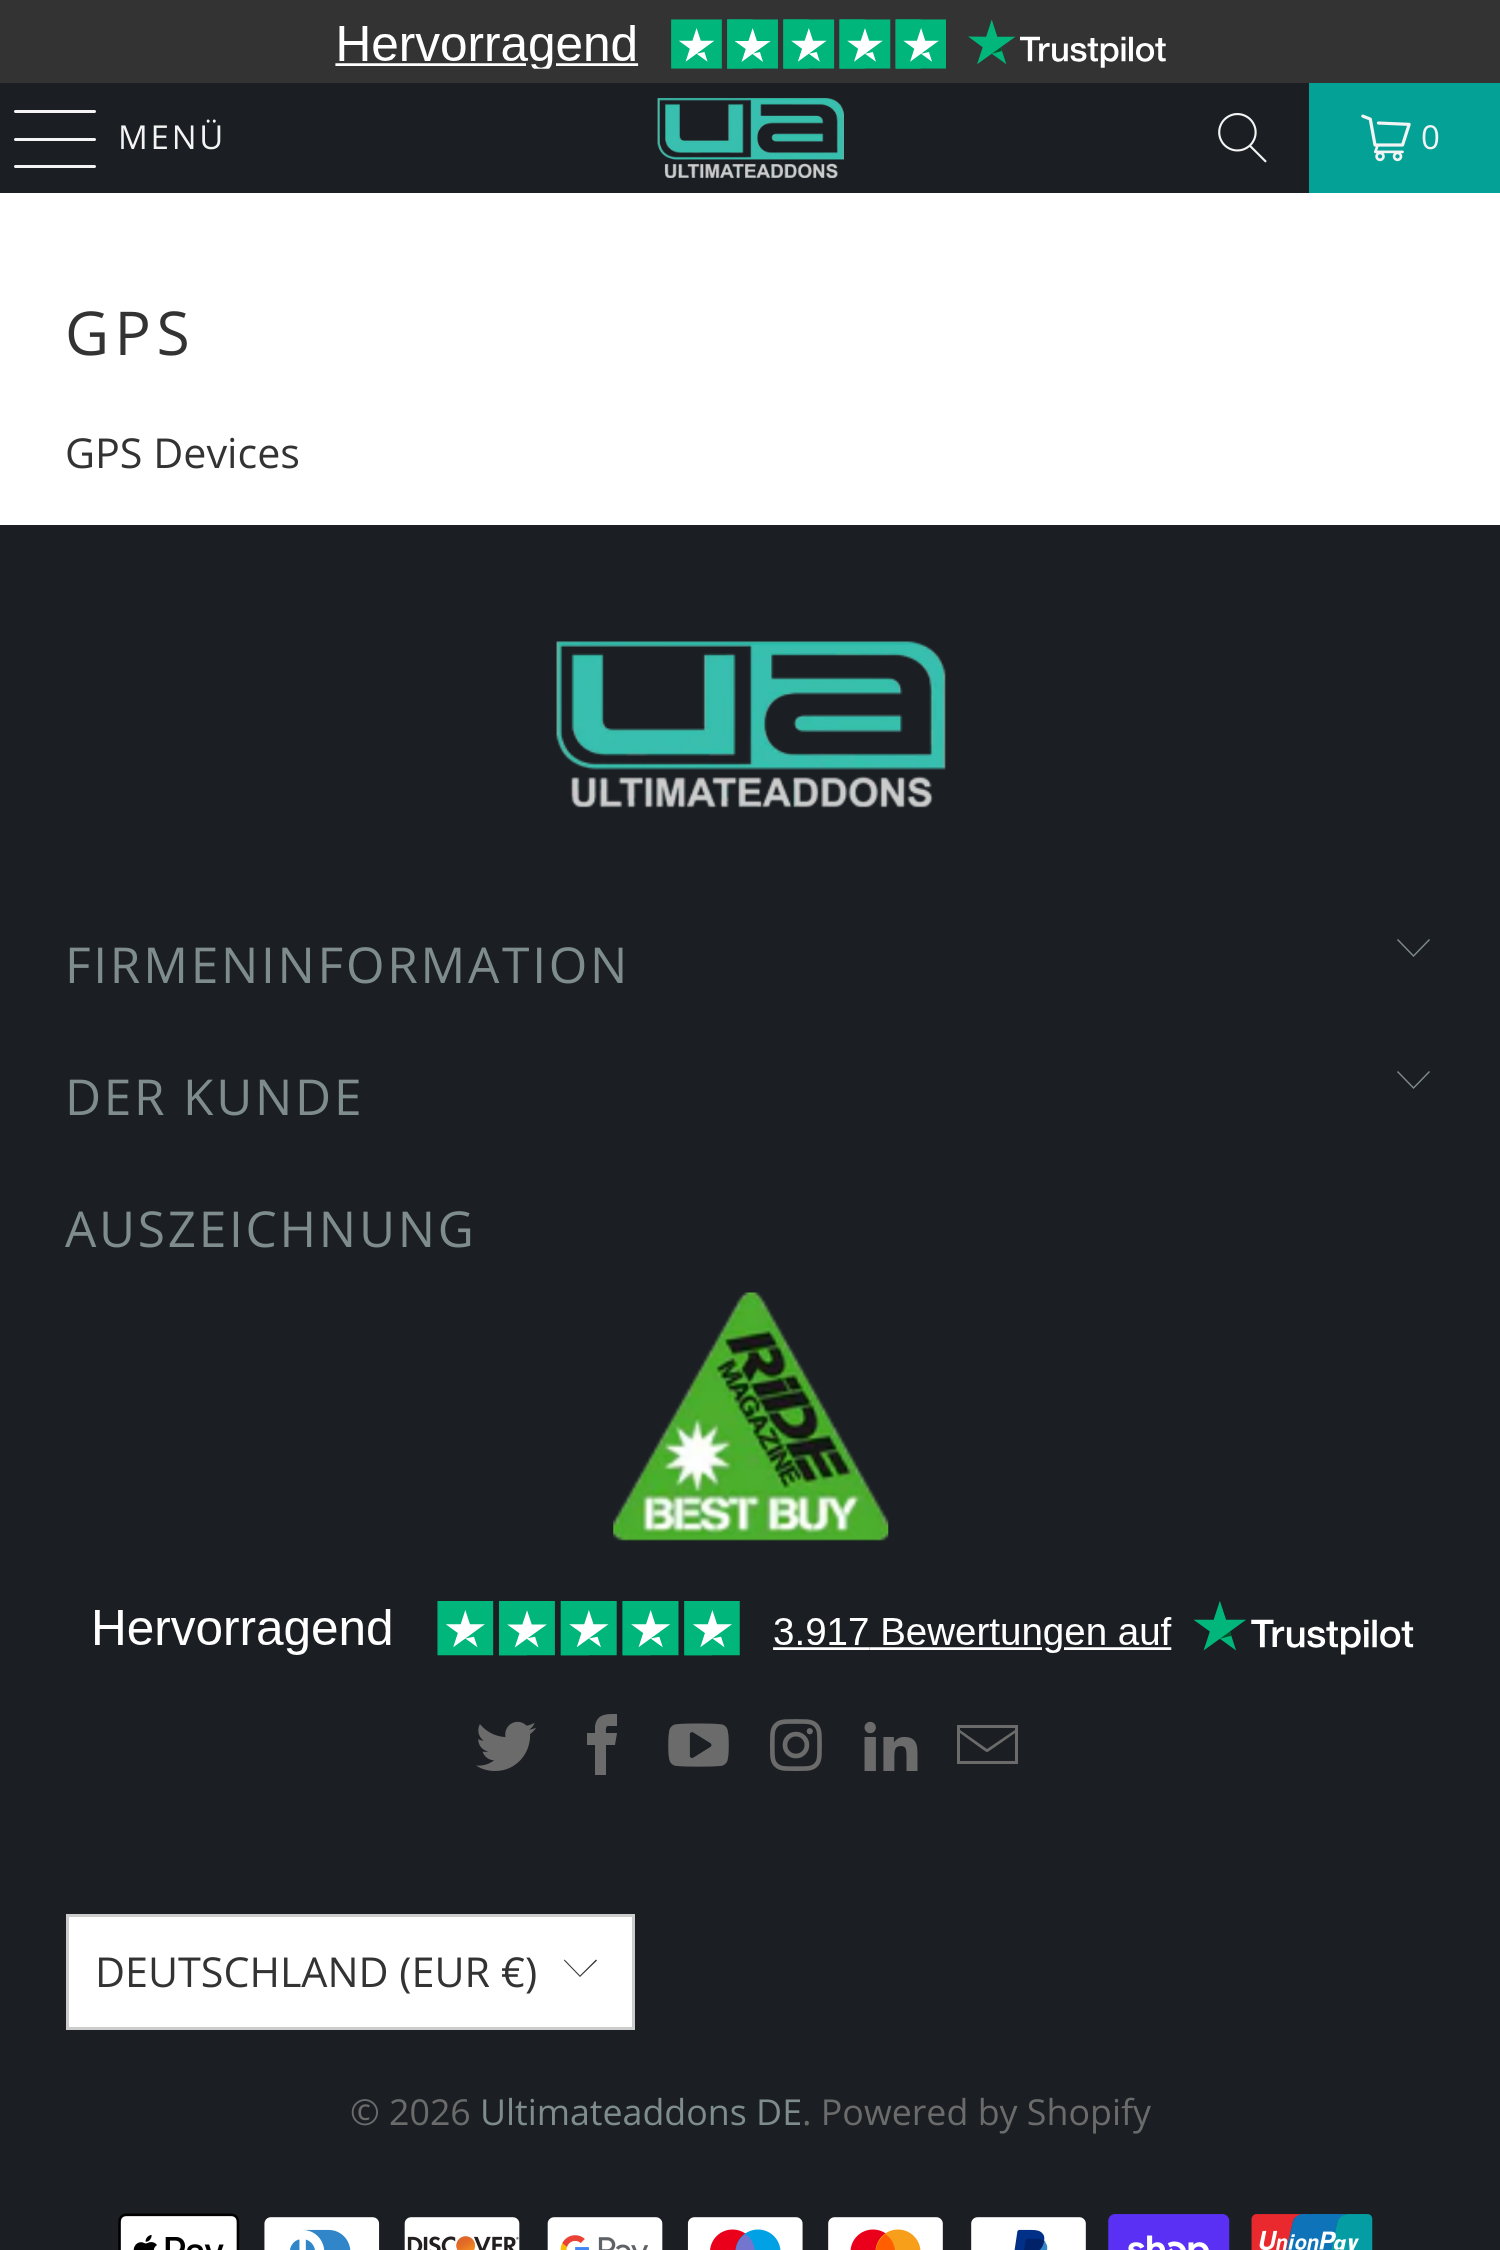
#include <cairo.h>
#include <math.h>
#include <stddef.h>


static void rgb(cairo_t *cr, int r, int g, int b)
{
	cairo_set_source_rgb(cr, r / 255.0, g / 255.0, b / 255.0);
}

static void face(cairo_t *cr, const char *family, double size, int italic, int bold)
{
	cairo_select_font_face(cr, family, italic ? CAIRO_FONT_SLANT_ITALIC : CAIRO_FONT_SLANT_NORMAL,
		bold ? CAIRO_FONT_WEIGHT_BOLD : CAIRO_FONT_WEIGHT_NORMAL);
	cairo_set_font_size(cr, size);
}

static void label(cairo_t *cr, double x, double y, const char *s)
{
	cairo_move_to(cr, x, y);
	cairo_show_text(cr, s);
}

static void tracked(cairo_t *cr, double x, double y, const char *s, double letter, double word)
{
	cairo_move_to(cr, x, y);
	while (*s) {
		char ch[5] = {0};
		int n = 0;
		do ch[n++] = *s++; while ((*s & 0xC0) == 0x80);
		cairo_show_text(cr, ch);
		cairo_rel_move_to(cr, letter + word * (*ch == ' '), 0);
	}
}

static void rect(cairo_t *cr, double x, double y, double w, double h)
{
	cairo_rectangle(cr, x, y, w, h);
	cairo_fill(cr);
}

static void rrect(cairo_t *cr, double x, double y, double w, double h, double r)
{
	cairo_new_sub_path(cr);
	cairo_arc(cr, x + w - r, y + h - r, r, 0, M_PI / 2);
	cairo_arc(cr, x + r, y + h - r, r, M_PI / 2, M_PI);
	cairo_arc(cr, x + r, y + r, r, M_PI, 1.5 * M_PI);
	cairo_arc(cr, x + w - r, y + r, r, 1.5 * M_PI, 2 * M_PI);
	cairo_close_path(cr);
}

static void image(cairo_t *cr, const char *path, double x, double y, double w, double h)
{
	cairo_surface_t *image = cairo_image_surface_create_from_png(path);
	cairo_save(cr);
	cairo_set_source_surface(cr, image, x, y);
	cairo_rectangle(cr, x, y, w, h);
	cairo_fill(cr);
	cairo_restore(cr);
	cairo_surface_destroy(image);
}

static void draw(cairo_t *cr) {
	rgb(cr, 255, 255, 255);
	cairo_paint(cr);
	rgb(cr, 51, 51, 51);
	rect(cr, 0, 0, 1500, 83);
	image(cr, "image0.png", 335, 19, 831, 50);
	rgb(cr, 27, 31, 35);
	rect(cr, 0, 83, 1309, 110);
	rgb(cr, 244, 244, 244);
	rrect(cr, 14, 110, 82, 3, 1.5);
	cairo_fill(cr);
	rrect(cr, 14, 138, 82, 3, 1.5);
	cairo_fill(cr);
	rrect(cr, 14, 165, 82, 3, 1.5);
	cairo_fill(cr);
	face(cr, "Open Sans", 33, 0, 0);
	tracked(cr, 118, 149, "MENÜ", 2.75, 0);
	image(cr, "image1.png", 657, 98, 187, 80);
	image(cr, "image2.png", 1218, 113, 49, 50);
	rgb(cr, 3, 161, 150);
	rect(cr, 1309, 83, 191, 110);
	image(cr, "image3.png", 1361, 114, 50, 48);
	rgb(cr, 244, 244, 244);
	tracked(cr, 1421, 149, "0", 2.75, 0);
	face(cr, "Open Sans", 60.5, 0, 0);
	rgb(cr, 51, 51, 51);
	tracked(cr, 65, 355, "GPS", 5.5, 0);
	face(cr, "Open Sans", 41.25, 0, 0);
	label(cr, 65, 468, "GPS Devices");
	rgb(cr, 27, 31, 35);
	rect(cr, 0, 525, 1500, 1725);
	image(cr, "image4.png", 556, 641, 390, 167);
	face(cr, "Open Sans", 49.5, 0, 0);
	rgb(cr, 127, 140, 141);
	tracked(cr, 65, 983, "FIRMENINFORMATION", 2.75, 0);
	cairo_new_path(cr);
	cairo_move_to(cr, 1413.5, 957);
	cairo_line_to(cr, 1397, 940);
	cairo_line_to(cr, 1398, 939);
	cairo_line_to(cr, 1413.5, 955);
	cairo_line_to(cr, 1429, 939);
	cairo_line_to(cr, 1430, 940);
	cairo_close_path(cr);
	cairo_fill(cr);
	tracked(cr, 65, 1115, "DER KUNDE", 2.75, 0);
	cairo_new_path(cr);
	cairo_move_to(cr, 1413.5, 1089);
	cairo_line_to(cr, 1397, 1072);
	cairo_line_to(cr, 1398, 1071);
	cairo_line_to(cr, 1413.5, 1087);
	cairo_line_to(cr, 1429, 1071);
	cairo_line_to(cr, 1430, 1072);
	cairo_close_path(cr);
	cairo_fill(cr);
	tracked(cr, 65, 1247, "AUSZEICHNUNG", 2.75, 0);
	image(cr, "image5.png", 613, 1292, 276, 249);
	image(cr, "image6.png", 95, 1601, 1319, 55);
	image(cr, "image7.png", 476, 1721, 60, 50);
	rgb(cr, 107, 107, 107);
	cairo_new_path(cr);
	cairo_move_to(cr, 608, 1726);
	cairo_line_to(cr, 617, 1726);
	cairo_line_to(cr, 617, 1714);
	cairo_curve_to(cr, 608, 1714, 597, 1713, 595, 1726);
	cairo_line_to(cr, 595, 1733);
	cairo_line_to(cr, 587, 1733);
	cairo_line_to(cr, 587, 1745);
	cairo_line_to(cr, 595, 1745);
	cairo_line_to(cr, 595, 1775);
	cairo_line_to(cr, 606, 1775);
	cairo_line_to(cr, 606, 1745);
	cairo_line_to(cr, 615, 1745);
	cairo_line_to(cr, 617, 1733);
	cairo_line_to(cr, 606, 1733);
	cairo_curve_to(cr, 606, 1732, 605, 1726, 608, 1726);
	cairo_close_path(cr);
	cairo_fill(cr);
	image(cr, "image8.png", 668, 1723, 61, 44);
	image(cr, "image9.png", 770, 1719, 52, 52);
	image(cr, "image10.png", 864, 1721, 54, 50);
	cairo_new_path(cr);
	cairo_move_to(cr, 957, 1725);
	cairo_line_to(cr, 957, 1764);
	cairo_line_to(cr, 1018, 1764);
	cairo_line_to(cr, 1018, 1725);
	cairo_close_path(cr);
	cairo_move_to(cr, 1015, 1728);
	cairo_line_to(cr, 1015, 1730);
	cairo_line_to(cr, 987, 1749);
	cairo_line_to(cr, 960, 1730);
	cairo_line_to(cr, 960, 1728);
	cairo_close_path(cr);
	cairo_move_to(cr, 960, 1761);
	cairo_line_to(cr, 960, 1733);
	cairo_line_to(cr, 982, 1749);
	cairo_curve_to(cr, 988, 1753, 986, 1753, 992, 1749);
	cairo_line_to(cr, 1015, 1733);
	cairo_line_to(cr, 1015, 1761);
	cairo_close_path(cr);
	cairo_fill(cr);
	rgb(cr, 255, 255, 255);
	cairo_rectangle(cr, 67.5, 1915.5, 566, 113);
	cairo_fill_preserve(cr);
	rgb(cr, 204, 204, 204);
	cairo_set_line_width(cr, 3);
	cairo_stroke(cr);
	face(cr, "Open Sans", 41.25, 0, 0);
	rgb(cr, 51, 51, 51);
	label(cr, 95, 1987, "DEUTSCHLAND (EUR €)");
	cairo_new_path(cr);
	cairo_move_to(cr, 580, 1977);
	cairo_line_to(cr, 564, 1960.5);
	cairo_line_to(cr, 564.5, 1959.5);
	cairo_line_to(cr, 580, 1975.5);
	cairo_line_to(cr, 596, 1959.5);
	cairo_line_to(cr, 597, 1960.5);
	cairo_close_path(cr);
	cairo_fill(cr);
	face(cr, "Open Sans", 35.75, 0, 0);
	rgb(cr, 107, 107, 107);
	label(cr, 350, 2125, "© 2026");
	rgb(cr, 127, 140, 141);
	label(cr, 480, 2125, "Ultimateaddons DE");
	rgb(cr, 107, 107, 107);
	label(cr, 802, 2125, ". Powered by Shopify");
	image(cr, "image11.png", 118, 2213, 122, 37);
	image(cr, "image12.png", 264, 2217, 116, 33);
	image(cr, "image13.png", 404, 2217, 116, 33);
	image(cr, "image14.png", 547, 2217, 116, 33);
	image(cr, "image15.png", 687, 2217, 116, 33);
	image(cr, "image16.png", 828, 2217, 115, 33);
	image(cr, "image17.png", 971, 2217, 115, 33);
	image(cr, "image18.png", 1108, 2214, 122, 36);
	image(cr, "image19.png", 1251, 2214, 122, 36);
}

int main(void) {
	cairo_surface_t *surface = cairo_image_surface_create(CAIRO_FORMAT_RGB24, 1500, 2250);
	cairo_t *cr = cairo_create(surface);
	cairo_font_options_t *options = cairo_font_options_create();
	cairo_font_options_set_hint_metrics(options, CAIRO_HINT_METRICS_OFF);
	cairo_font_options_set_hint_style(options, CAIRO_HINT_STYLE_NONE);
	cairo_set_font_options(cr, options);
	cairo_set_miter_limit(cr, 4);
	draw(cr);
	cairo_surface_write_to_png(surface, "render.png");
	cairo_font_options_destroy(options);
	cairo_destroy(cr);
	cairo_surface_destroy(surface);
	return 0;
}
